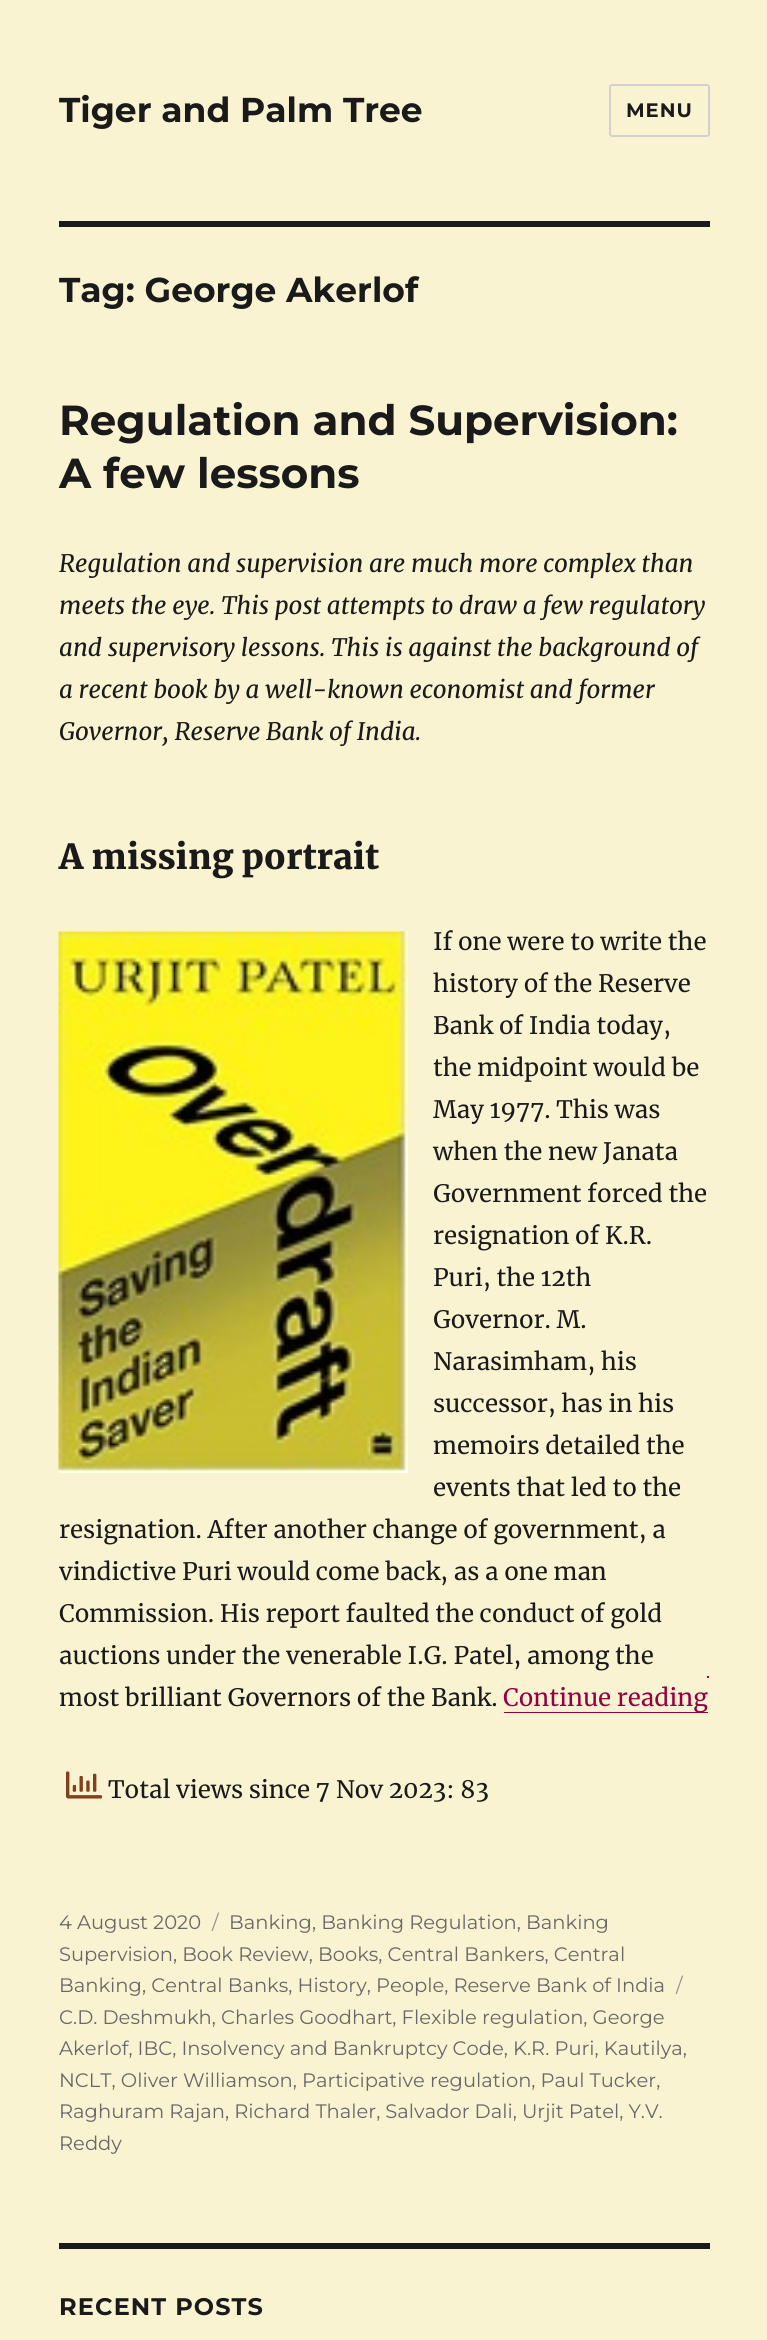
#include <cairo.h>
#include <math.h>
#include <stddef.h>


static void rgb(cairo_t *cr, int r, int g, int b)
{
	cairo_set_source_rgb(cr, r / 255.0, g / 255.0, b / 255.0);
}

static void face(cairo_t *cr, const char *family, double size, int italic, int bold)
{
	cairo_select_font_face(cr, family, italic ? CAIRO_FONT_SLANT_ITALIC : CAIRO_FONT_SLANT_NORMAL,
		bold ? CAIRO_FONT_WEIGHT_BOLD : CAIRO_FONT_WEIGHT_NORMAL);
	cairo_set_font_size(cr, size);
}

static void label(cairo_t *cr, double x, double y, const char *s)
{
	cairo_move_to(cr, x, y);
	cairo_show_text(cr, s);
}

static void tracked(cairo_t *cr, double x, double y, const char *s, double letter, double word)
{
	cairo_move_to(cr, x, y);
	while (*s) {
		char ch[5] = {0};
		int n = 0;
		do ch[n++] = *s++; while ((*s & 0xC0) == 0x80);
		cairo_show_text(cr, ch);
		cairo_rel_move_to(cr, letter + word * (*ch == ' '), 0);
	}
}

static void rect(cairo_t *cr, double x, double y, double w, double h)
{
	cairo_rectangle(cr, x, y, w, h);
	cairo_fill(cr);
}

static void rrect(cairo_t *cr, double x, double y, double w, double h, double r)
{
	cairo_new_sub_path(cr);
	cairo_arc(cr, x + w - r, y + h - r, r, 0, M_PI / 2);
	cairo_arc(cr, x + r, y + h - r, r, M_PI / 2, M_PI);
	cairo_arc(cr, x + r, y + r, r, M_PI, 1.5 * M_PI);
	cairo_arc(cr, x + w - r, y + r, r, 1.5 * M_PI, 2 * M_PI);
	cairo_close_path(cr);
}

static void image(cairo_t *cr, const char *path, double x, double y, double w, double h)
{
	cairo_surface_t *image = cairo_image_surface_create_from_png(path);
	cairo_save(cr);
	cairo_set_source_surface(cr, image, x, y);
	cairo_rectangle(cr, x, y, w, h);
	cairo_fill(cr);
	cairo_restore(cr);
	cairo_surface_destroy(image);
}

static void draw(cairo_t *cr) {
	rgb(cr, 249, 243, 209);
	cairo_paint(cr);
	face(cr, "Montserrat Thin", 34.5, 0, 0);
	rgb(cr, 26, 26, 26);
	label(cr, 59, 122, "Tiger and Palm Tree");
	rrect(cr, 610, 85, 99, 51, 2);
	rgb(cr, 209, 209, 209);
	cairo_stroke(cr);
	face(cr, "Montserrat Thin", 19.5, 0, 0);
	rgb(cr, 26, 26, 26);
	tracked(cr, 626, 117, "MENU", 1, 0);
	rect(cr, 59, 221, 651, 6);
	face(cr, "Montserrat Thin", 34.5, 0, 0);
	label(cr, 59, 302, "Tag: George Akerlof");
	face(cr, "Montserrat Thin", 42, 0, 0);
	label(cr, 59, 435, "Regulation and Supervision:");
	label(cr, 59, 488, "A few lessons");
	face(cr, "Merriweather", 24, 1, 0);
	label(cr, 59, 572, "Regulation and supervision are much more complex than");
	label(cr, 59, 614, "meets the eye. This post attempts to draw a few regulatory");
	label(cr, 59, 656, "and supervisory lessons. This is against the background of");
	label(cr, 59, 698, "a recent book by a well-known economist and former");
	label(cr, 59, 740, "Governor, Reserve Bank of India.");
	face(cr, "Merriweather Black", 34.5, 0, 0);
	label(cr, 59, 869, "A missing portrait");
	face(cr, "Merriweather", 24, 0, 0);
	label(cr, 433, 950, "If one were to write the");
	label(cr, 433, 992, "history of the Reserve");
	label(cr, 433, 1034, "Bank of India today,");
	label(cr, 433, 1076, "the midpoint would be");
	label(cr, 433, 1118, "May 1977. This was");
	label(cr, 433, 1160, "when the new Janata");
	label(cr, 433, 1202, "Government forced the");
	label(cr, 433, 1244, "resignation of K.R.");
	label(cr, 433, 1286, "Puri, the 12th");
	label(cr, 433, 1328, "Governor. M.");
	label(cr, 433, 1370, "Narasimham, his");
	label(cr, 433, 1412, "successor, has in his");
	label(cr, 433, 1454, "memoirs detailed the");
	label(cr, 433, 1496, "events that led to the");
	label(cr, 59, 1538, "resignation. After another change of government, a");
	label(cr, 59, 1580, "vindictive Puri would come back, as a one man");
	label(cr, 59, 1622, "Commission. His report faulted the conduct of gold");
	label(cr, 59, 1664, "auctions under the venerable I.G. Patel, among the");
	label(cr, 59, 1706, "most brilliant Governors of the Bank.");
	rgb(cr, 147, 0, 66);
	rect(cr, 504, 1712, 204, 1);
	label(cr, 503, 1706, "Continue reading");
	rect(cr, 707, 1676, 2, 2);
	image(cr, "image0.png", 58, 931, 350, 542);
	image(cr, "image1.png", 66, 1771, 36, 28);
	rgb(cr, 26, 26, 26);
	label(cr, 108, 1798, "Total views since 7 Nov 2023: 83");
	face(cr, "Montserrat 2 Thin", 19.5, 0, 0);
	rgb(cr, 104, 104, 104);
	label(cr, 59, 1929, "4 August 2020");
	rgb(cr, 148, 146, 136);
	label(cr, 212, 1929, "/");
	rgb(cr, 104, 104, 104);
	label(cr, 229, 1929, "Banking, Banking Regulation, Banking");
	label(cr, 59, 1961, "Supervision, Book Review, Books, Central Bankers, Central");
	label(cr, 59, 1992, "Banking, Central Banks, History, People, Reserve Bank of India");
	rgb(cr, 148, 146, 136);
	label(cr, 676, 1992, "/");
	rgb(cr, 104, 104, 104);
	label(cr, 59, 2024, "C.D. Deshmukh, Charles Goodhart, Flexible regulation, George");
	label(cr, 59, 2055, "Akerlof, IBC, Insolvency and Bankruptcy Code, K.R. Puri, Kautilya,");
	label(cr, 59, 2087, "NCLT, Oliver Williamson, Participative regulation, Paul Tucker,");
	label(cr, 59, 2118, "Raghuram Rajan, Richard Thaler, Salvador Dali, Urjit Patel, Y.V.");
	label(cr, 59, 2150, "Reddy");
	rgb(cr, 26, 26, 26);
	rect(cr, 59, 2243, 651, 6);
	face(cr, "Montserrat Thin", 24, 0, 0);
	tracked(cr, 59, 2315, "RECENT POSTS", 1.1, 0);
}

int main(void) {
	cairo_surface_t *surface = cairo_image_surface_create(CAIRO_FORMAT_RGB24, 767, 2340);
	cairo_t *cr = cairo_create(surface);
	cairo_font_options_t *options = cairo_font_options_create();
	cairo_font_options_set_hint_metrics(options, CAIRO_HINT_METRICS_OFF);
	cairo_font_options_set_hint_style(options, CAIRO_HINT_STYLE_NONE);
	cairo_set_font_options(cr, options);
	cairo_set_miter_limit(cr, 4);
	draw(cr);
	cairo_surface_write_to_png(surface, "render.png");
	cairo_font_options_destroy(options);
	cairo_destroy(cr);
	cairo_surface_destroy(surface);
	return 0;
}
